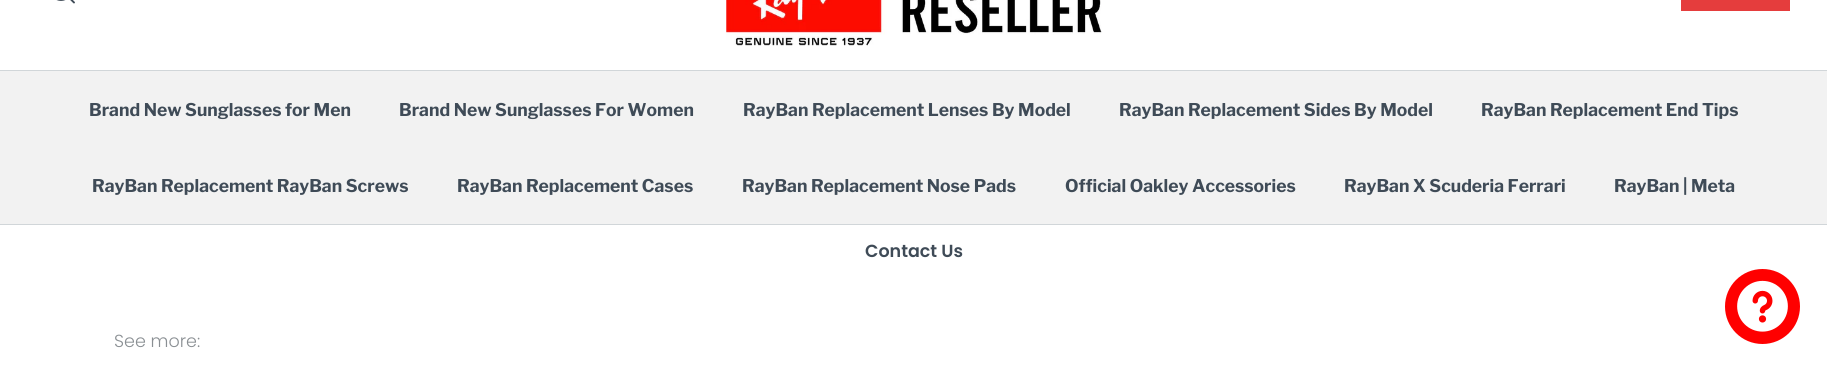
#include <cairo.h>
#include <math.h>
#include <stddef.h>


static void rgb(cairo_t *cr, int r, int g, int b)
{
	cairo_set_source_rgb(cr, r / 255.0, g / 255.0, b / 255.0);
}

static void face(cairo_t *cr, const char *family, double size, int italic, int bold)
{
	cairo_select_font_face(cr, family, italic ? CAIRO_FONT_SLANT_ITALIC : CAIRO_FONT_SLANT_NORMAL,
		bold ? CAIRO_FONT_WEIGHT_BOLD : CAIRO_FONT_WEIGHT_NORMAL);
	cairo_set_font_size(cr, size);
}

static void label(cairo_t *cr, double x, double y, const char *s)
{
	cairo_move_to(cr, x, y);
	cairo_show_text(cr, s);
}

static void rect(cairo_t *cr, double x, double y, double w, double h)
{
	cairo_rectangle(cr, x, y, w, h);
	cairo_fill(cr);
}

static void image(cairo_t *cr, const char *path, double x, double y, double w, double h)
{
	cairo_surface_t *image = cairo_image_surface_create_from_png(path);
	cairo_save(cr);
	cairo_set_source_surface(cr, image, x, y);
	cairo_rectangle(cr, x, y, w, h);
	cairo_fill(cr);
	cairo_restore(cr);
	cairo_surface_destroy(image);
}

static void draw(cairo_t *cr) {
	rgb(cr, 255, 255, 255);
	cairo_paint(cr);
	cairo_arc(cr, 61, -10, 10, 0, 2 * M_PI);
	rgb(cr, 63, 75, 87);
	cairo_set_line_width(cr, 1.9);
	cairo_stroke(cr);
	cairo_new_path(cr);
	cairo_move_to(cr, 74, 2.5);
	cairo_line_to(cr, 68.5, -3);
	cairo_set_line_cap(cr, CAIRO_LINE_CAP_ROUND);
	cairo_set_line_join(cr, CAIRO_LINE_JOIN_ROUND);
	cairo_stroke(cr);
	rgb(cr, 229, 61, 61);
	rect(cr, 1681, 0, 109, 11);
	image(cr, "image0.png", 726, 0, 376, 46);
	rgb(cr, 209, 214, 217);
	rect(cr, 0, 224, 1827, 1);
	rgb(cr, 242, 242, 242);
	rect(cr, 0, 71, 1827, 153);
	rgb(cr, 209, 214, 217);
	rect(cr, 0, 70, 1827, 1);
	face(cr, "Libre Franklin", 17.5, 0, 1);
	rgb(cr, 63, 75, 87);
	label(cr, 89, 116, "Brand New Sunglasses for Men");
	label(cr, 399, 116, "Brand New Sunglasses For Women");
	label(cr, 743, 116, "RayBan Replacement Lenses By Model");
	label(cr, 1119, 116, "RayBan Replacement Sides By Model");
	label(cr, 1481, 116, "RayBan Replacement End Tips");
	label(cr, 92, 192, "RayBan Replacement RayBan Screws");
	label(cr, 457, 192, "RayBan Replacement Cases");
	label(cr, 742, 192, "RayBan Replacement Nose Pads");
	label(cr, 1065, 192, "Official Oakley Accessories");
	label(cr, 1344, 192, "RayBan X Scuderia Ferrari");
	label(cr, 1614, 192, "RayBan | Meta");
	face(cr, "Poppins SemiBold", 17.5, 0, 0);
	label(cr, 865, 257, "Contact Us");
	face(cr, "Poppins Light", 17.5, 0, 0);
	rgb(cr, 138, 143, 147);
	label(cr, 114, 347, "See more:");
	rgb(cr, 255, 0, 0);
	cairo_new_path(cr);
	cairo_arc(cr, 1762.5, 306.5, 37.5, 0, 2 * M_PI);
	cairo_fill(cr);
	image(cr, "image1.png", 1737, 280, 51, 52);
}

int main(void) {
	cairo_surface_t *surface = cairo_image_surface_create(CAIRO_FORMAT_RGB24, 1827, 370);
	cairo_t *cr = cairo_create(surface);
	cairo_font_options_t *options = cairo_font_options_create();
	cairo_font_options_set_hint_metrics(options, CAIRO_HINT_METRICS_OFF);
	cairo_font_options_set_hint_style(options, CAIRO_HINT_STYLE_NONE);
	cairo_set_font_options(cr, options);
	cairo_set_miter_limit(cr, 4);
	draw(cr);
	cairo_surface_write_to_png(surface, "render.png");
	cairo_font_options_destroy(options);
	cairo_destroy(cr);
	cairo_surface_destroy(surface);
	return 0;
}
